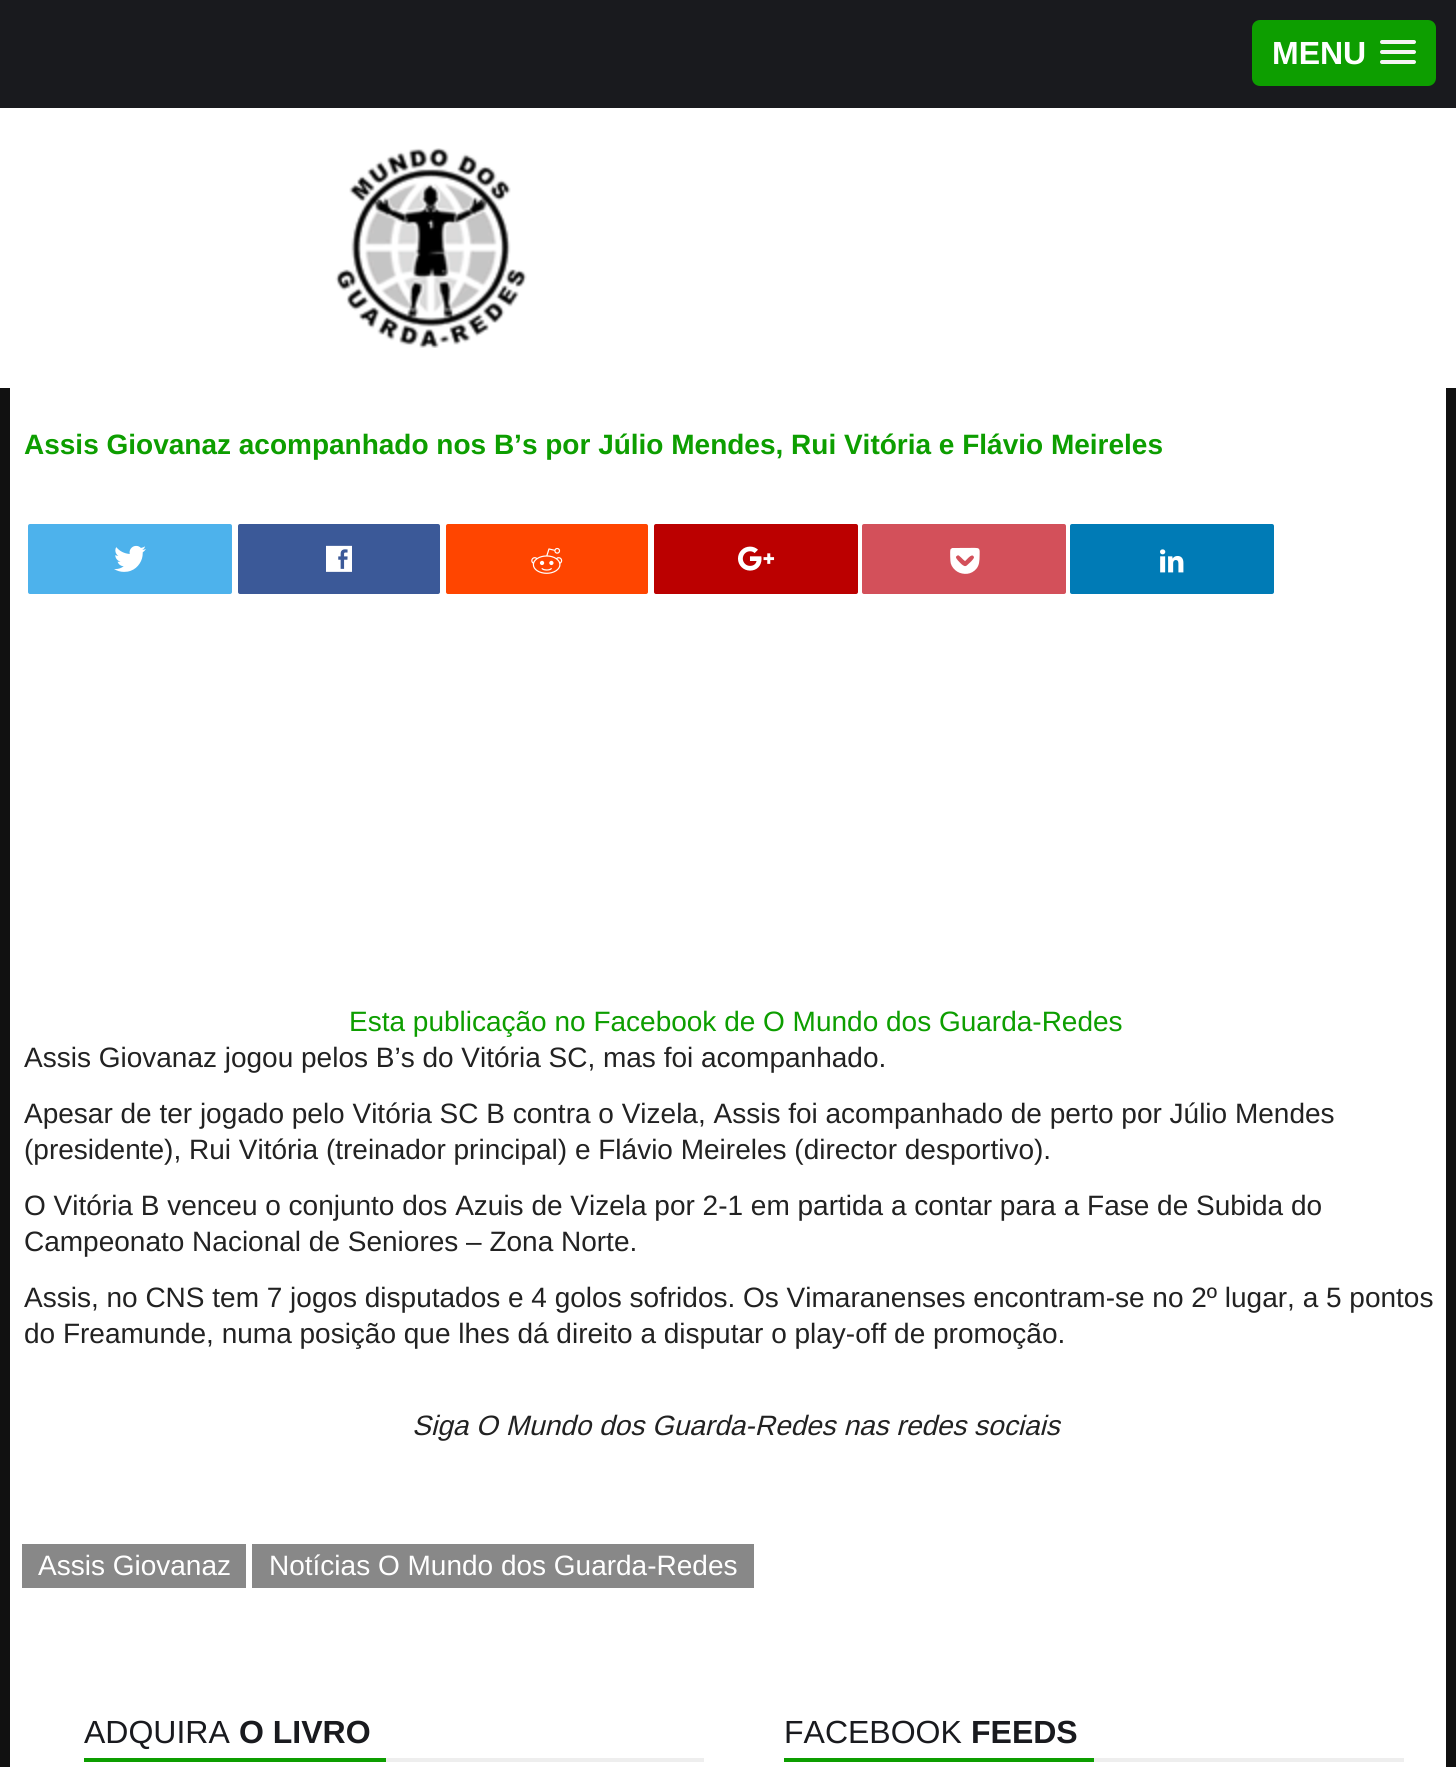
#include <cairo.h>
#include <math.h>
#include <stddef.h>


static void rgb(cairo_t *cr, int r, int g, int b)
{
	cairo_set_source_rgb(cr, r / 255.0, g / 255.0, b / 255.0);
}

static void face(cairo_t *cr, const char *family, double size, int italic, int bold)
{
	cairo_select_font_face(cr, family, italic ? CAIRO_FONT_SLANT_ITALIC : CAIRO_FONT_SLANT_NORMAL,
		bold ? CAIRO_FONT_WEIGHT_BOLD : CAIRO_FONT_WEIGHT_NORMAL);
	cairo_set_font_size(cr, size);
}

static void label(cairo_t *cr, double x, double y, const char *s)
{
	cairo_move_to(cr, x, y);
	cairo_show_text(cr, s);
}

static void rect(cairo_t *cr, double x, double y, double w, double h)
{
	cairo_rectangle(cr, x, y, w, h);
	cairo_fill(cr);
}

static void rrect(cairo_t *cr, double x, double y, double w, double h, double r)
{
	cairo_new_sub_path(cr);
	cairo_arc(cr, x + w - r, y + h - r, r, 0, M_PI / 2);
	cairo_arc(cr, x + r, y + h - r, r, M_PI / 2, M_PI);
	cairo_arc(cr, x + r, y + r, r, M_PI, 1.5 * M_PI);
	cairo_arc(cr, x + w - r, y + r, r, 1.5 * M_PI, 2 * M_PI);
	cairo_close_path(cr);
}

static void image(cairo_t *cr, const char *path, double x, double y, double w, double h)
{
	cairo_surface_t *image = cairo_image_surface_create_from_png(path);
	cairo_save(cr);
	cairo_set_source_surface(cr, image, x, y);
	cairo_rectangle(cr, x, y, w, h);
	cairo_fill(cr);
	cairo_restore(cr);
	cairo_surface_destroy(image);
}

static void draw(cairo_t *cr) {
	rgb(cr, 17, 17, 17);
	cairo_paint(cr);
	rgb(cr, 25, 26, 30);
	rect(cr, 0, 0, 1456, 108);
	rgb(cr, 13, 158, 0);
	rrect(cr, 1252, 20, 184, 66, 8);
	cairo_fill(cr);
	face(cr, "Arimo", 32, 0, 1);
	rgb(cr, 255, 255, 255);
	label(cr, 1272, 64, "MENU");
	rgb(cr, 245, 245, 245);
	rrect(cr, 1380, 40, 36, 4, 2);
	cairo_fill(cr);
	rrect(cr, 1380, 50, 36, 4, 2);
	cairo_fill(cr);
	rrect(cr, 1380, 60, 36, 4, 2);
	cairo_fill(cr);
	rgb(cr, 255, 255, 255);
	rect(cr, 0, 108, 1456, 280);
	image(cr, "image0.png", 335, 148, 192, 200);
	rect(cr, 10, 388, 1436, 1379);
	face(cr, "Arimo", 28, 0, 1);
	rgb(cr, 13, 158, 0);
	label(cr, 24, 454, "Assis Giovanaz acompanhado nos B’s por Júlio Mendes, Rui Vitória e Flávio Meireles");
	rgb(cr, 77, 178, 236);
	rrect(cr, 28, 524, 204, 70, 2);
	cairo_fill(cr);
	image(cr, "image1.png", 114, 545, 32, 27);
	rgb(cr, 59, 89, 152);
	rrect(cr, 238, 524, 202, 70, 2);
	cairo_fill(cr);
	image(cr, "image2.png", 326, 545, 26, 27);
	rgb(cr, 255, 69, 0);
	rrect(cr, 446, 524, 202, 70, 2);
	cairo_fill(cr);
	image(cr, "image3.png", 531, 547, 32, 27);
	rgb(cr, 187, 0, 0);
	rrect(cr, 654, 524, 204, 70, 2);
	cairo_fill(cr);
	image(cr, "image4.png", 738, 546, 37, 25);
	rgb(cr, 211, 80, 90);
	rrect(cr, 862, 524, 204, 70, 2);
	cairo_fill(cr);
	image(cr, "image5.png", 950, 547, 30, 27);
	rgb(cr, 0, 123, 182);
	rrect(cr, 1070, 524, 204, 70, 2);
	cairo_fill(cr);
	image(cr, "image6.png", 1160, 549, 24, 24);
	face(cr, "Arimo", 28, 0, 0);
	rgb(cr, 13, 158, 0);
	label(cr, 349, 1031, "Esta publicação no Facebook de O Mundo dos Guarda-Redes");
	rgb(cr, 34, 34, 34);
	label(cr, 24, 1067, "Assis Giovanaz jogou pelos B’s do Vitória SC, mas foi acompanhado.");
	label(cr, 24, 1123, "Apesar de ter jogado pelo Vitória SC B contra o Vizela, Assis foi acompanhado de perto por Júlio Mendes");
	label(cr, 24, 1159, "(presidente), Rui Vitória (treinador principal) e Flávio Meireles (director desportivo).");
	label(cr, 24, 1215, "O Vitória B venceu o conjunto dos Azuis de Vizela por 2-1 em partida a contar para a Fase de Subida do");
	label(cr, 24, 1251, "Campeonato Nacional de Seniores – Zona Norte.");
	label(cr, 24, 1307, "Assis, no CNS tem 7 jogos disputados e 4 golos sofridos. Os Vimaranenses encontram-se no 2º lugar, a 5 pontos");
	label(cr, 24, 1343, "do Freamunde, numa posição que lhes dá direito a disputar o play-off de promoção.");
	face(cr, "Arimo", 28, 1, 0);
	label(cr, 412, 1435, "Siga O Mundo dos Guarda-Redes nas redes sociais");
	rgb(cr, 136, 136, 136);
	rect(cr, 22, 1544, 224, 44);
	face(cr, "Arimo", 28, 0, 0);
	rgb(cr, 255, 255, 255);
	label(cr, 38, 1575, "Assis Giovanaz");
	rgb(cr, 136, 136, 136);
	rect(cr, 252, 1544, 502, 44);
	rgb(cr, 255, 255, 255);
	label(cr, 269, 1575, "Notícias O Mundo dos Guarda-Redes");
	rgb(cr, 238, 238, 238);
	rect(cr, 386, 1758, 318, 4);
	rgb(cr, 13, 158, 0);
	rect(cr, 84, 1758, 302, 4);
	face(cr, "Arimo", 32, 0, 0);
	rgb(cr, 25, 26, 30);
	label(cr, 84, 1743, "ADQUIRA");
	face(cr, "Arimo", 32, 0, 1);
	label(cr, 239, 1743, "O LIVRO");
	rgb(cr, 238, 238, 238);
	rect(cr, 1094, 1758, 310, 4);
	rgb(cr, 13, 158, 0);
	rect(cr, 784, 1758, 310, 4);
	face(cr, "Arimo", 32, 0, 0);
	rgb(cr, 25, 26, 30);
	label(cr, 784, 1743, "FACEBOOK");
	face(cr, "Arimo", 32, 0, 1);
	label(cr, 971, 1743, "FEEDS");
}

int main(void) {
	cairo_surface_t *surface = cairo_image_surface_create(CAIRO_FORMAT_RGB24, 1456, 1767);
	cairo_t *cr = cairo_create(surface);
	cairo_font_options_t *options = cairo_font_options_create();
	cairo_font_options_set_hint_metrics(options, CAIRO_HINT_METRICS_OFF);
	cairo_font_options_set_hint_style(options, CAIRO_HINT_STYLE_NONE);
	cairo_set_font_options(cr, options);
	cairo_set_miter_limit(cr, 4);
	draw(cr);
	cairo_surface_write_to_png(surface, "render.png");
	cairo_font_options_destroy(options);
	cairo_destroy(cr);
	cairo_surface_destroy(surface);
	return 0;
}
